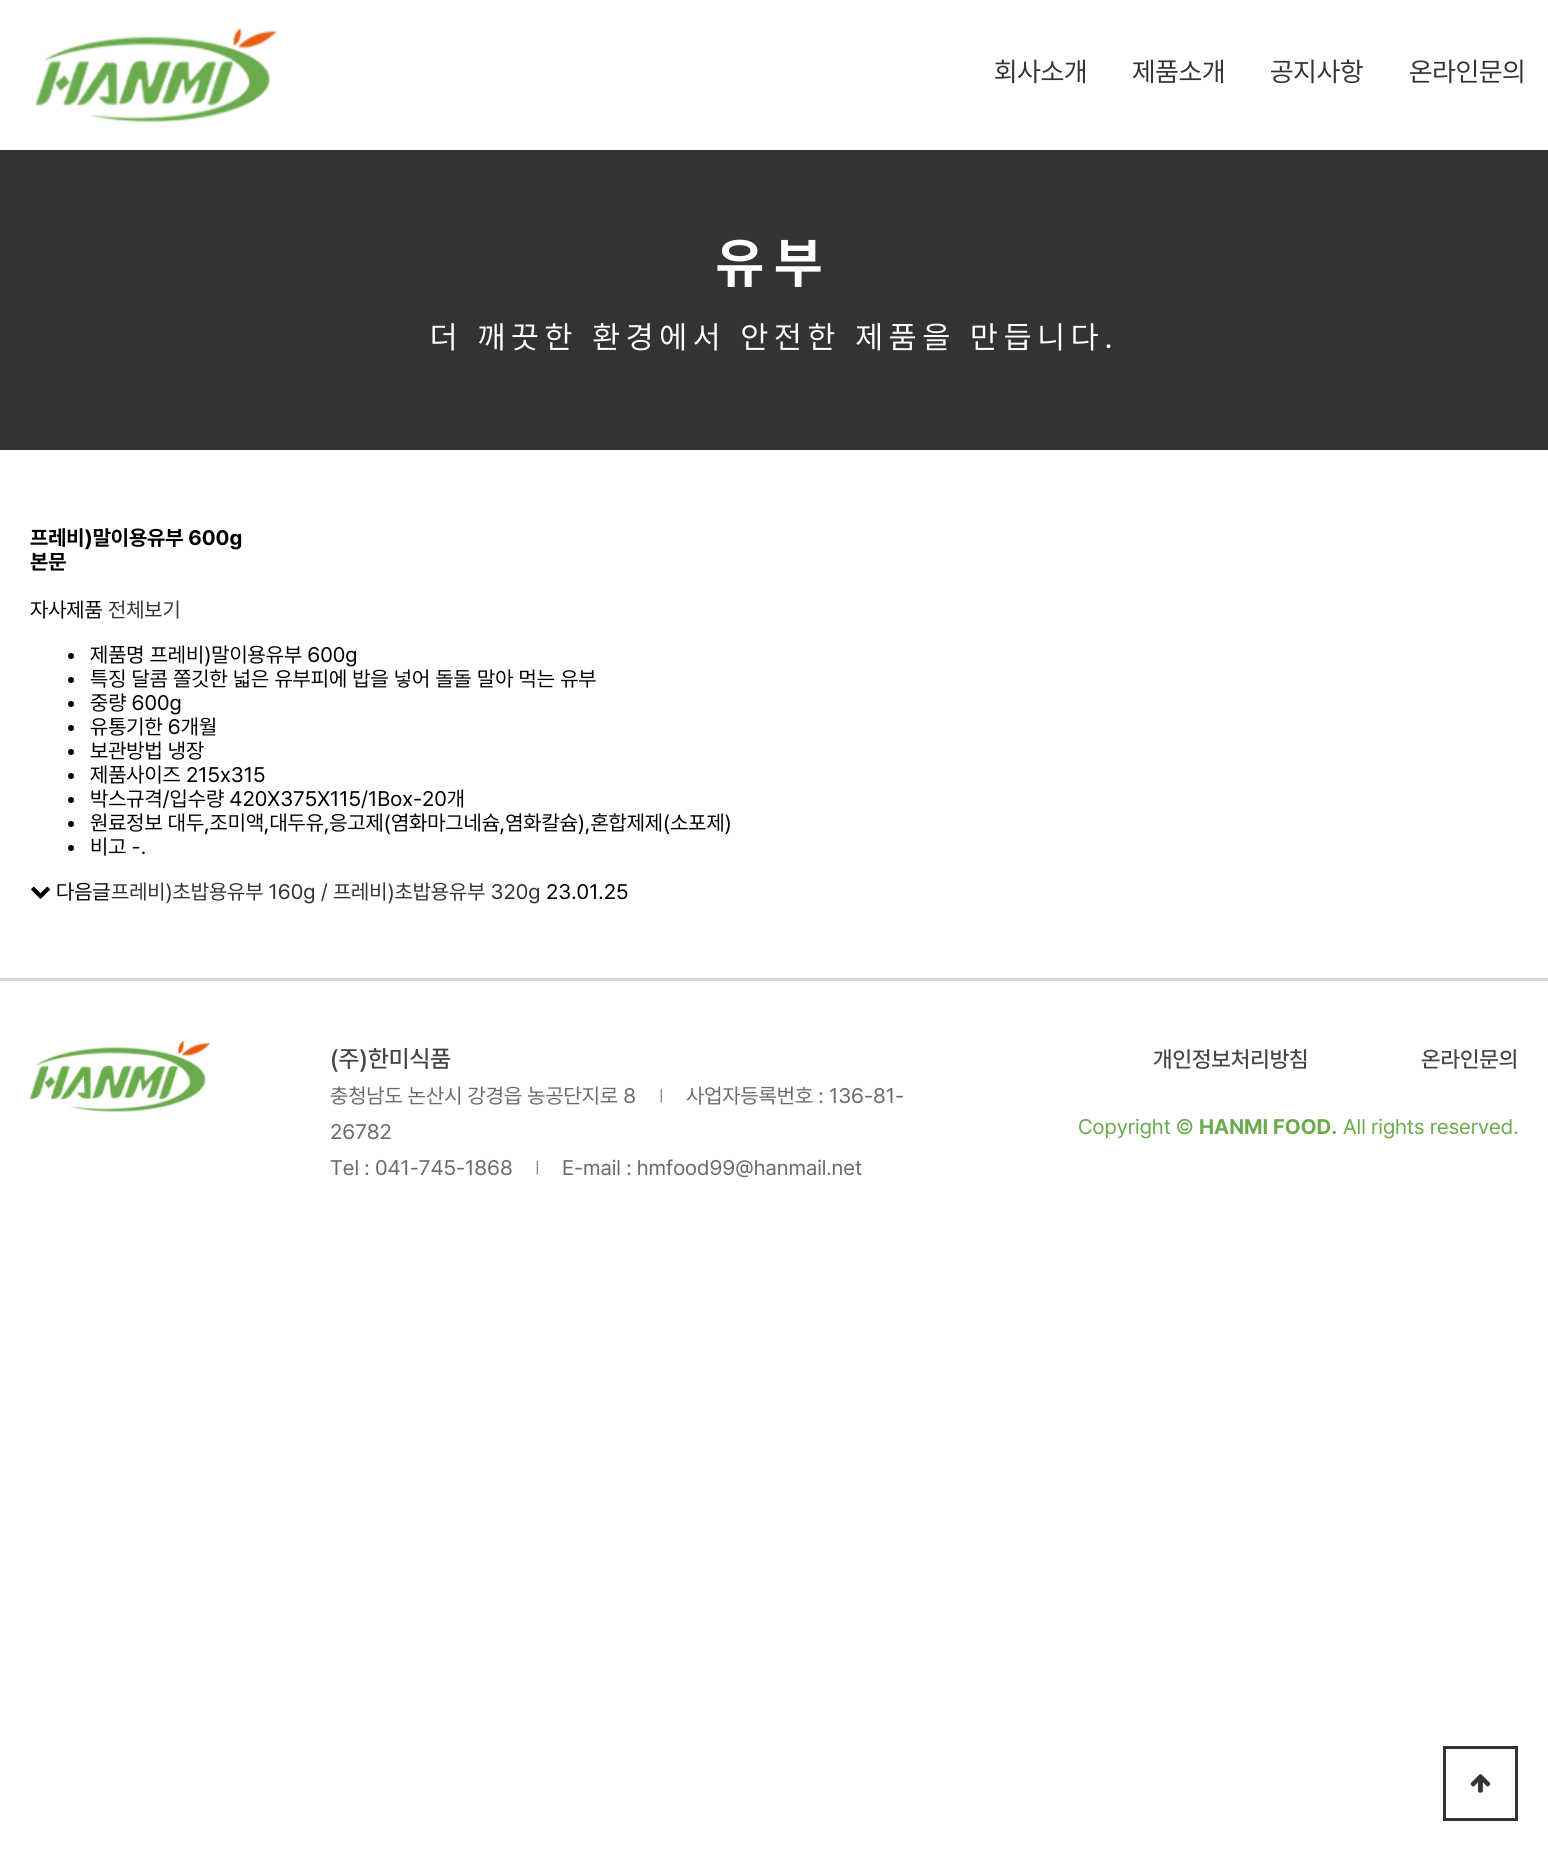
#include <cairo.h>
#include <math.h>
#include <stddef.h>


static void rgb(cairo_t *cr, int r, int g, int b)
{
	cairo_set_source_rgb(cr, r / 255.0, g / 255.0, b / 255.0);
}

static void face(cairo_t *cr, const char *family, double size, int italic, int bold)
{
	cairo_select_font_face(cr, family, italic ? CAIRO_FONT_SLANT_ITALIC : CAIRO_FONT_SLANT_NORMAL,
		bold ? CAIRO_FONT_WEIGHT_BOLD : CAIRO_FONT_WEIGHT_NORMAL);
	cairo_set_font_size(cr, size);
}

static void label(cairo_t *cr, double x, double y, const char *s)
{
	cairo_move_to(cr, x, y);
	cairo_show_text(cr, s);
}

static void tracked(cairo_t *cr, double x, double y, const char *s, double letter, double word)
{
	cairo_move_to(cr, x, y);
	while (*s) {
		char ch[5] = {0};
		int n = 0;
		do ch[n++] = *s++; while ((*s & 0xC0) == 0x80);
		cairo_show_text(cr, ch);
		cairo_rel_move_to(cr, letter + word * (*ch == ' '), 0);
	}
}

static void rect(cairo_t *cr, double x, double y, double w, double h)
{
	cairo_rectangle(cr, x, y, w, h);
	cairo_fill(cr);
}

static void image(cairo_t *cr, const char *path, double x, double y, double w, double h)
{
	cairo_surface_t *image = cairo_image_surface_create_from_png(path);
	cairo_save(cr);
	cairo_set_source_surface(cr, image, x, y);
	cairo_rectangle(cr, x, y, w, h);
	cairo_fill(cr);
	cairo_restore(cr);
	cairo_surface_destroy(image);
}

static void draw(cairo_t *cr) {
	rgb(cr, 255, 255, 255);
	cairo_paint(cr);
	image(cr, "image0.png", 36, 28, 240, 94);
	face(cr, "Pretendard", 27, 0, 0);
	rgb(cr, 51, 51, 51);
	label(cr, 994, 81, "회사소개");
	label(cr, 1132, 81, "제품소개");
	label(cr, 1270, 81, "공지사항");
	label(cr, 1409, 81, "온라인문의");
	rect(cr, 0, 150, 1548, 300);
	face(cr, "Pretendard", 55, 0, 1);
	rgb(cr, 255, 255, 255);
	tracked(cr, 716, 282, "유부", 11, 0);
	face(cr, "Pretendard", 31.5, 0, 0);
	tracked(cr, 430, 348, "더 깨끗한 환경에서 안전한 제품을 만듭니다.", 6.3, 0);
	face(cr, "Pretendard", 21, 0, 1);
	rgb(cr, 0, 0, 0);
	label(cr, 30, 545, "프레비)말이용유부 600g");
	label(cr, 30, 569, "본문");
	face(cr, "Pretendard", 21, 0, 0);
	label(cr, 30, 617, "자사제품");
	rgb(cr, 51, 51, 51);
	label(cr, 108, 617, "전체보기");
	rgb(cr, 0, 0, 0);
	cairo_new_path(cr);
	cairo_arc(cr, 71, 656, 3, 0, 2 * M_PI);
	cairo_fill(cr);
	label(cr, 90, 662, "제품명 프레비)말이용유부 600g");
	cairo_new_path(cr);
	cairo_arc(cr, 71, 680, 3, 0, 2 * M_PI);
	cairo_fill(cr);
	label(cr, 90, 686, "특징 달콤 쫄깃한 넓은 유부피에 밥을 넣어 돌돌 말아 먹는 유부");
	cairo_new_path(cr);
	cairo_arc(cr, 71, 704, 3, 0, 2 * M_PI);
	cairo_fill(cr);
	label(cr, 90, 710, "중량 600g");
	cairo_new_path(cr);
	cairo_arc(cr, 71, 728, 3, 0, 2 * M_PI);
	cairo_fill(cr);
	label(cr, 90, 734, "유통기한 6개월");
	cairo_new_path(cr);
	cairo_arc(cr, 71, 752, 3, 0, 2 * M_PI);
	cairo_fill(cr);
	label(cr, 90, 758, "보관방법 냉장");
	cairo_new_path(cr);
	cairo_arc(cr, 71, 776, 3, 0, 2 * M_PI);
	cairo_fill(cr);
	label(cr, 90, 782, "제품사이즈 215x315");
	cairo_new_path(cr);
	cairo_arc(cr, 71, 800, 3, 0, 2 * M_PI);
	cairo_fill(cr);
	label(cr, 90, 806, "박스규격/입수량 420X375X115/1Box-20개");
	cairo_new_path(cr);
	cairo_arc(cr, 71, 824, 3, 0, 2 * M_PI);
	cairo_fill(cr);
	label(cr, 90, 830, "원료정보 대두,조미액,대두유,응고제(염화마그네슘,염화칼슘),혼합제제(소포제)");
	cairo_new_path(cr);
	cairo_arc(cr, 71, 848, 3, 0, 2 * M_PI);
	cairo_fill(cr);
	label(cr, 90, 854, "비고 -.");
	image(cr, "image1.png", 31, 886, 19, 13);
	label(cr, 56, 899, "다음글");
	rgb(cr, 51, 51, 51);
	label(cr, 111, 899, "프레비)초밥용유부 160g / 프레비)초밥용유부 320g");
	rgb(cr, 0, 0, 0);
	label(cr, 546, 899, "23.01.25");
	rgb(cr, 216, 216, 216);
	rect(cr, 0, 978, 1548, 3);
	image(cr, "image2.png", 30, 1041, 180, 71);
	face(cr, "Pretendard Medium", 24, 0, 0);
	rgb(cr, 68, 68, 68);
	label(cr, 330, 1067, "(주)한미식품");
	face(cr, "Pretendard", 21, 0, 0);
	rgb(cr, 106, 106, 106);
	label(cr, 330, 1103, "충청남도 논산시 강경읍 농공단지로 8");
	face(cr, "Pretendard", 15, 0, 0);
	label(cr, 659, 1101, "|");
	face(cr, "Pretendard", 21, 0, 0);
	label(cr, 686, 1103, "사업자등록번호 : 136-81-");
	label(cr, 330, 1139, "26782");
	label(cr, 330, 1175, "Tel : 041-745-1868");
	face(cr, "Pretendard", 15, 0, 0);
	label(cr, 535, 1173, "|");
	face(cr, "Pretendard", 21, 0, 0);
	label(cr, 562, 1175, "E-mail : hmfood99@hanmail.net");
	face(cr, "Pretendard Medium", 22.5, 0, 0);
	rgb(cr, 68, 68, 68);
	label(cr, 1153, 1067, "개인정보처리방침");
	label(cr, 1421, 1067, "온라인문의");
	face(cr, "Pretendard", 21, 0, 0);
	rgb(cr, 106, 171, 76);
	label(cr, 1078, 1134, "Copyright ©");
	face(cr, "Pretendard", 21, 0, 1);
	label(cr, 1199, 1134, "HANMI FOOD.");
	face(cr, "Pretendard", 21, 0, 0);
	label(cr, 1343, 1134, "All rights reserved.");
	cairo_rectangle(cr, 1444.5, 1747.5, 72, 72);
	rgb(cr, 51, 51, 51);
	cairo_set_line_width(cr, 3);
	cairo_stroke(cr);
	image(cr, "image3.png", 1470, 1774, 21, 19);
}

int main(void) {
	cairo_surface_t *surface = cairo_image_surface_create(CAIRO_FORMAT_RGB24, 1548, 1850);
	cairo_t *cr = cairo_create(surface);
	cairo_font_options_t *options = cairo_font_options_create();
	cairo_font_options_set_hint_metrics(options, CAIRO_HINT_METRICS_OFF);
	cairo_font_options_set_hint_style(options, CAIRO_HINT_STYLE_NONE);
	cairo_set_font_options(cr, options);
	cairo_set_miter_limit(cr, 4);
	draw(cr);
	cairo_surface_write_to_png(surface, "render.png");
	cairo_font_options_destroy(options);
	cairo_destroy(cr);
	cairo_surface_destroy(surface);
	return 0;
}
